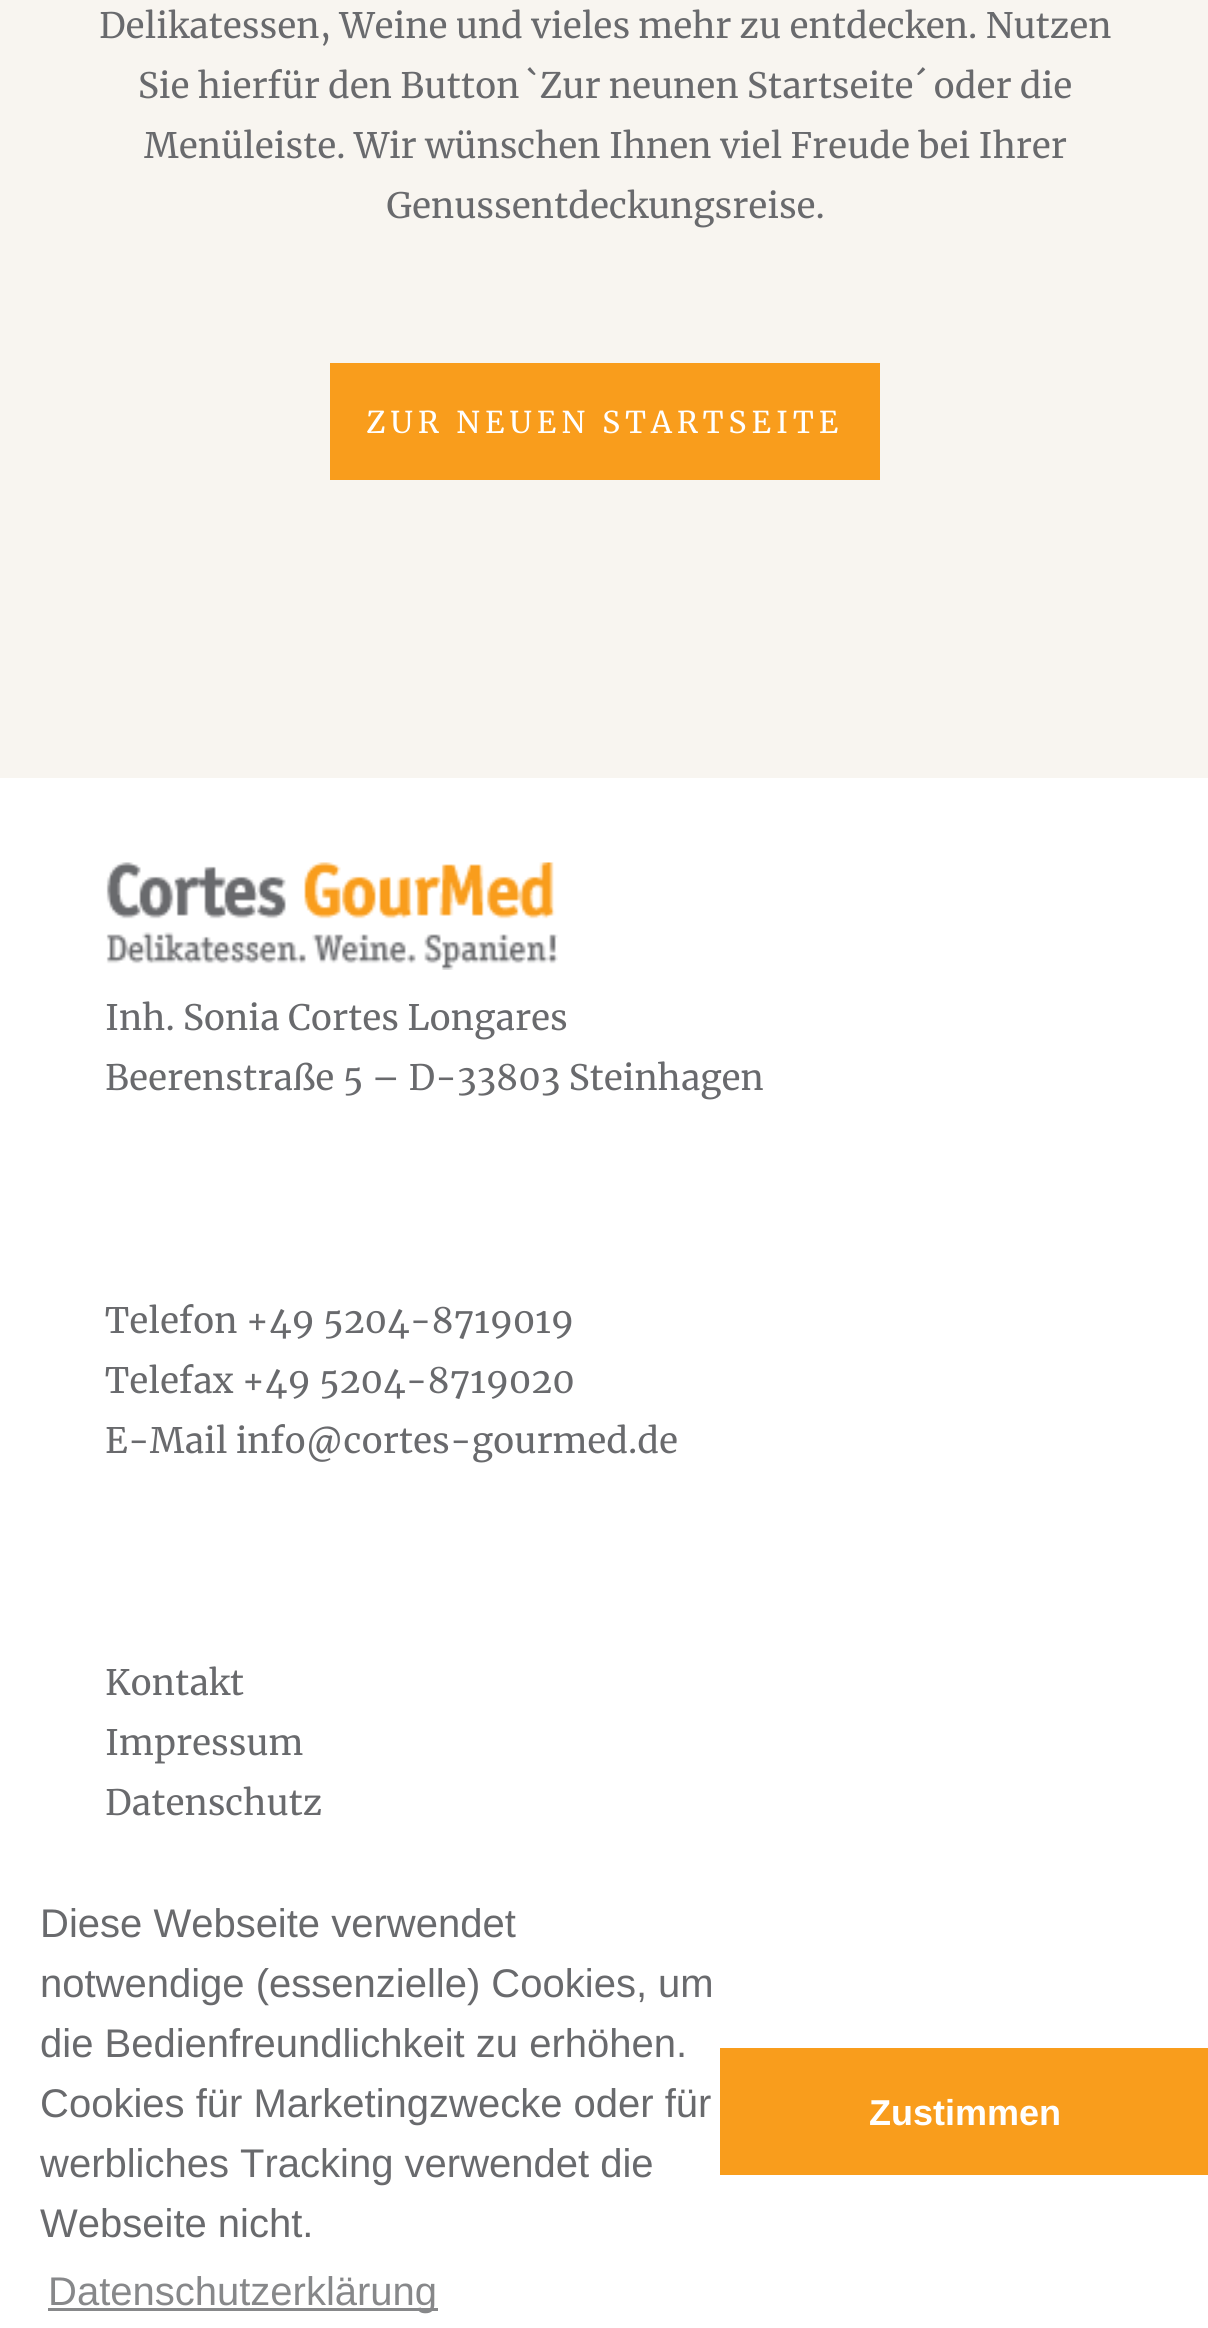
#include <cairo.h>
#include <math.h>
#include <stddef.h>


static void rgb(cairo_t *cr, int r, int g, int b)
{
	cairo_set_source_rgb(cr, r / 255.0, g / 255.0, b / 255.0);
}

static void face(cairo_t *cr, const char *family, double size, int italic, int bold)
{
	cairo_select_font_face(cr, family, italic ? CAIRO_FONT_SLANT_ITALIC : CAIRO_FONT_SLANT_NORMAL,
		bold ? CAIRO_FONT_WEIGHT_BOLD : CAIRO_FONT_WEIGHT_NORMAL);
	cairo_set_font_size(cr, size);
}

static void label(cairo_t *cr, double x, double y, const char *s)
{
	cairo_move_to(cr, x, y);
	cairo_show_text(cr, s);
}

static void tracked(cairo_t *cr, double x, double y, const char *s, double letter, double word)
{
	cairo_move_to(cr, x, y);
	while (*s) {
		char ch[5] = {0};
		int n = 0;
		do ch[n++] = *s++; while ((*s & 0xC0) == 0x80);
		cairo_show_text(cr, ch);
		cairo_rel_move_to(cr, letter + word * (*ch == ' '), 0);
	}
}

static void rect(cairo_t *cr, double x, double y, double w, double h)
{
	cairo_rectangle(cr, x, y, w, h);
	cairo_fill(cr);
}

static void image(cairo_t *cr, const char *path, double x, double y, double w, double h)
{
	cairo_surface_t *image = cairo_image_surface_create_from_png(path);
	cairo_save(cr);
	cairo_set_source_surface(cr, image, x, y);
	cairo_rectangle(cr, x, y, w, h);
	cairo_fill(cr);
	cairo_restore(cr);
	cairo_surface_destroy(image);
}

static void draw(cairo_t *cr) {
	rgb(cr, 248, 245, 240);
	cairo_paint(cr);
	face(cr, "Merriweather", 35, 0, 0);
	rgb(cr, 105, 106, 109);
	label(cr, 99, 38, "Delikatessen, Weine und vieles mehr zu entdecken. Nutzen");
	label(cr, 138, 98, "Sie hierfür den Button `Zur neunen Startseite´ oder die");
	label(cr, 144, 158, "Menüleiste. Wir wünschen Ihnen viel Freude bei Ihrer");
	label(cr, 386, 218, "Genussentdeckungsreise.");
	rgb(cr, 249, 157, 28);
	rect(cr, 330, 363, 550, 117);
	face(cr, "Merriweather", 30, 0, 0);
	rgb(cr, 255, 255, 255);
	tracked(cr, 366, 433, "ZUR NEUEN STARTSEITE", 5, 0);
	rect(cr, 0, 778, 1208, 1550);
	image(cr, "image0.png", 106, 862, 452, 108);
	face(cr, "Merriweather", 35, 0, 0);
	rgb(cr, 105, 106, 109);
	label(cr, 105, 1030, "Inh. Sonia Cortes Longares");
	label(cr, 105, 1090, "Beerenstraße 5 – D-33803 Steinhagen");
	label(cr, 105, 1333, "Telefon +49 5204-8719019");
	label(cr, 105, 1393, "Telefax +49 5204-8719020");
	label(cr, 105, 1453, "E-Mail info@cortes-gourmed.de");
	label(cr, 105, 1695, "Kontakt");
	label(cr, 105, 1755, "Impressum");
	label(cr, 105, 1815, "Datenschutz");
	face(cr, "Liberation Sans", 40, 0, 0);
	label(cr, 40, 1937, "Diese Webseite verwendet");
	label(cr, 40, 1997, "notwendige (essenzielle) Cookies, um");
	label(cr, 40, 2057, "die Bedienfreundlichkeit zu erhöhen.");
	label(cr, 40, 2117, "Cookies für Marketingzwecke oder für");
	label(cr, 40, 2177, "werbliches Tracking verwendet die");
	label(cr, 40, 2237, "Webseite nicht.");
	rgb(cr, 135, 136, 138);
	rect(cr, 48, 2308, 390, 3);
	label(cr, 48, 2305, "Datenschutzerklärung");
	rgb(cr, 249, 157, 28);
	rect(cr, 720, 2048, 488, 127);
	face(cr, "Liberation Sans", 36, 0, 1);
	rgb(cr, 255, 255, 255);
	label(cr, 869, 2125, "Zustimmen");
}

int main(void) {
	cairo_surface_t *surface = cairo_image_surface_create(CAIRO_FORMAT_RGB24, 1208, 2328);
	cairo_t *cr = cairo_create(surface);
	cairo_font_options_t *options = cairo_font_options_create();
	cairo_font_options_set_hint_metrics(options, CAIRO_HINT_METRICS_OFF);
	cairo_font_options_set_hint_style(options, CAIRO_HINT_STYLE_NONE);
	cairo_set_font_options(cr, options);
	cairo_set_miter_limit(cr, 4);
	draw(cr);
	cairo_surface_write_to_png(surface, "render.png");
	cairo_font_options_destroy(options);
	cairo_destroy(cr);
	cairo_surface_destroy(surface);
	return 0;
}
